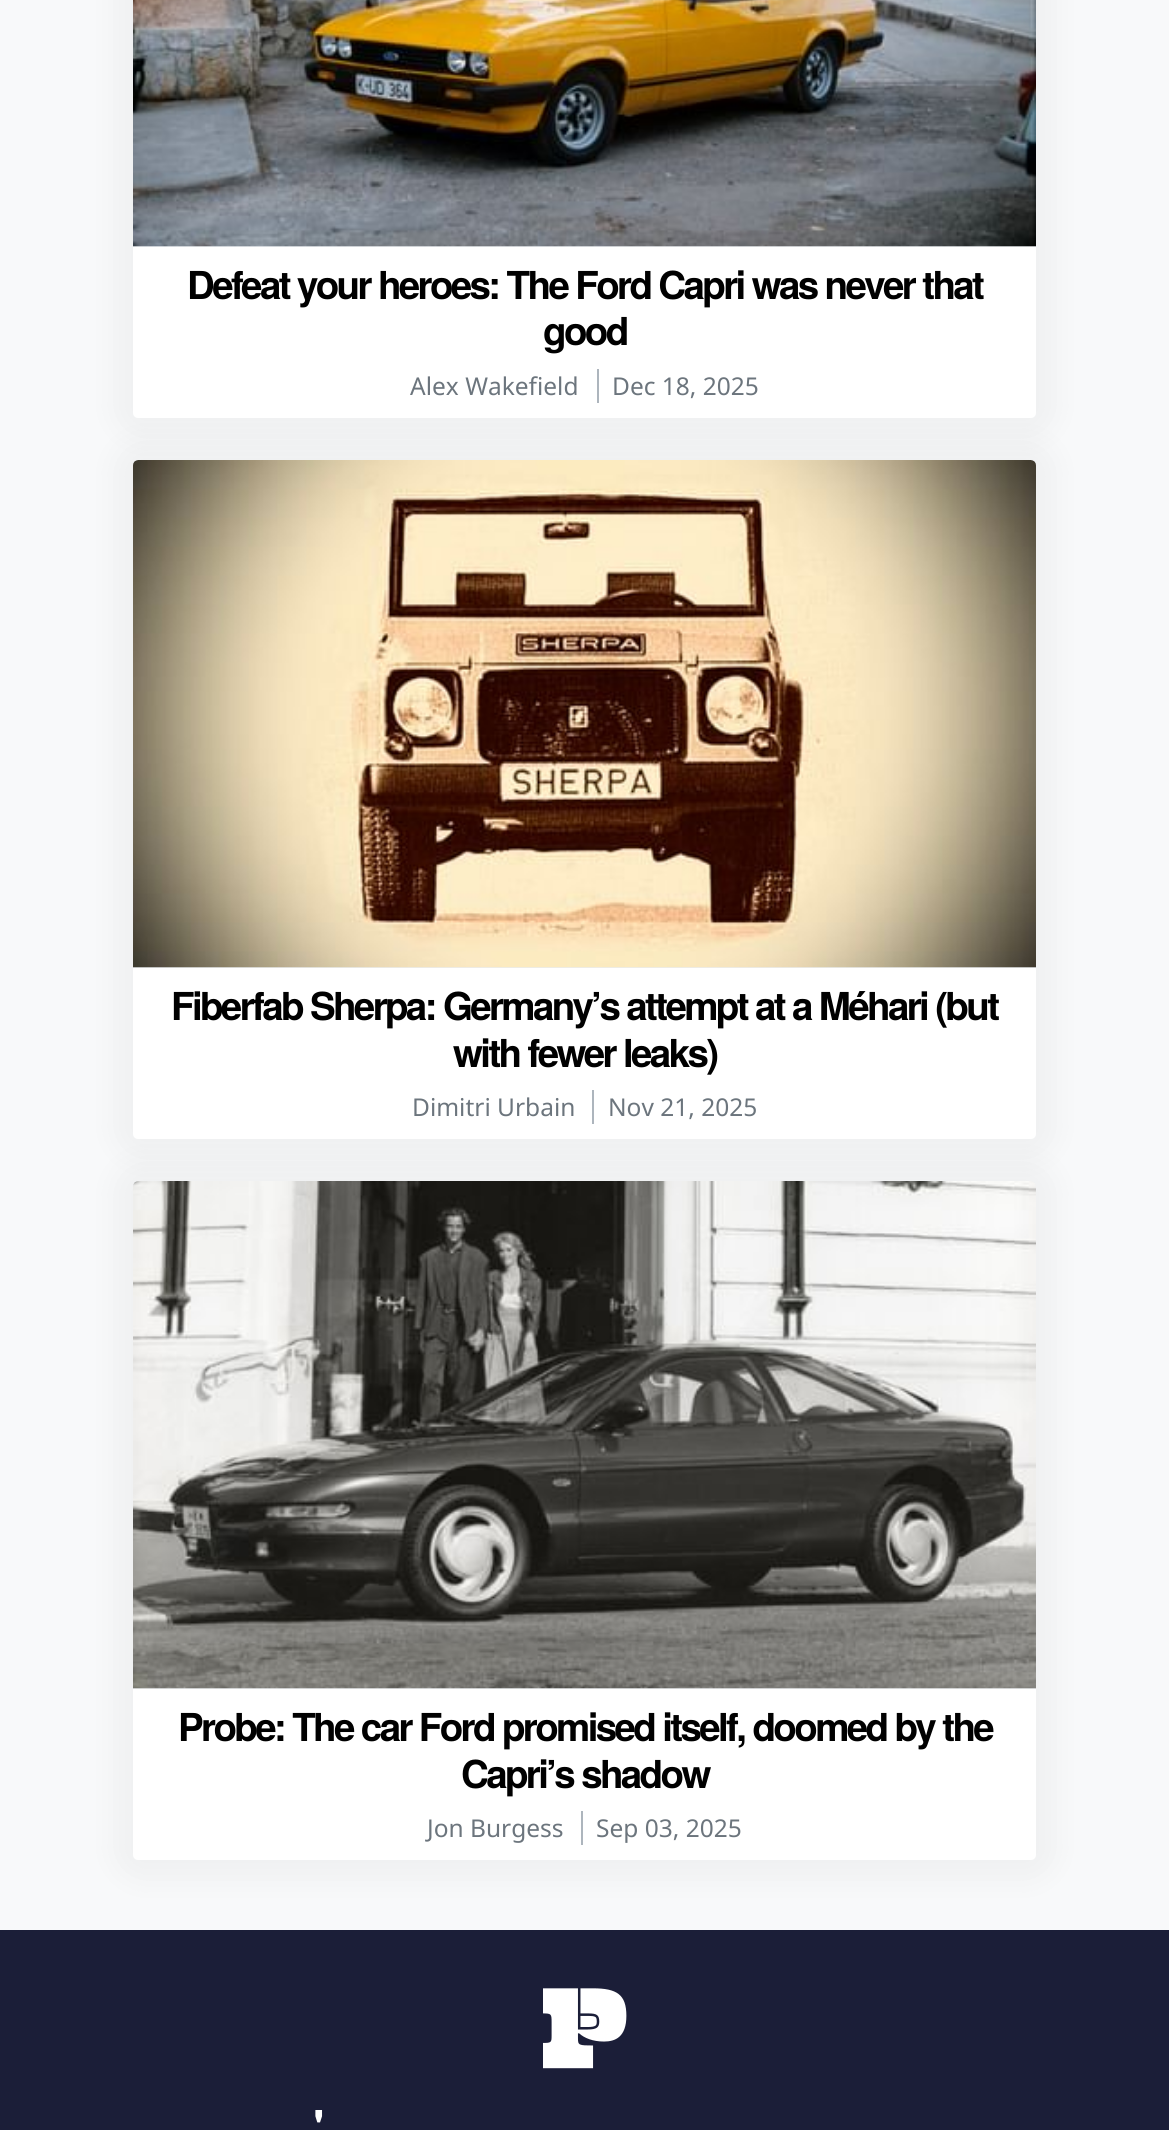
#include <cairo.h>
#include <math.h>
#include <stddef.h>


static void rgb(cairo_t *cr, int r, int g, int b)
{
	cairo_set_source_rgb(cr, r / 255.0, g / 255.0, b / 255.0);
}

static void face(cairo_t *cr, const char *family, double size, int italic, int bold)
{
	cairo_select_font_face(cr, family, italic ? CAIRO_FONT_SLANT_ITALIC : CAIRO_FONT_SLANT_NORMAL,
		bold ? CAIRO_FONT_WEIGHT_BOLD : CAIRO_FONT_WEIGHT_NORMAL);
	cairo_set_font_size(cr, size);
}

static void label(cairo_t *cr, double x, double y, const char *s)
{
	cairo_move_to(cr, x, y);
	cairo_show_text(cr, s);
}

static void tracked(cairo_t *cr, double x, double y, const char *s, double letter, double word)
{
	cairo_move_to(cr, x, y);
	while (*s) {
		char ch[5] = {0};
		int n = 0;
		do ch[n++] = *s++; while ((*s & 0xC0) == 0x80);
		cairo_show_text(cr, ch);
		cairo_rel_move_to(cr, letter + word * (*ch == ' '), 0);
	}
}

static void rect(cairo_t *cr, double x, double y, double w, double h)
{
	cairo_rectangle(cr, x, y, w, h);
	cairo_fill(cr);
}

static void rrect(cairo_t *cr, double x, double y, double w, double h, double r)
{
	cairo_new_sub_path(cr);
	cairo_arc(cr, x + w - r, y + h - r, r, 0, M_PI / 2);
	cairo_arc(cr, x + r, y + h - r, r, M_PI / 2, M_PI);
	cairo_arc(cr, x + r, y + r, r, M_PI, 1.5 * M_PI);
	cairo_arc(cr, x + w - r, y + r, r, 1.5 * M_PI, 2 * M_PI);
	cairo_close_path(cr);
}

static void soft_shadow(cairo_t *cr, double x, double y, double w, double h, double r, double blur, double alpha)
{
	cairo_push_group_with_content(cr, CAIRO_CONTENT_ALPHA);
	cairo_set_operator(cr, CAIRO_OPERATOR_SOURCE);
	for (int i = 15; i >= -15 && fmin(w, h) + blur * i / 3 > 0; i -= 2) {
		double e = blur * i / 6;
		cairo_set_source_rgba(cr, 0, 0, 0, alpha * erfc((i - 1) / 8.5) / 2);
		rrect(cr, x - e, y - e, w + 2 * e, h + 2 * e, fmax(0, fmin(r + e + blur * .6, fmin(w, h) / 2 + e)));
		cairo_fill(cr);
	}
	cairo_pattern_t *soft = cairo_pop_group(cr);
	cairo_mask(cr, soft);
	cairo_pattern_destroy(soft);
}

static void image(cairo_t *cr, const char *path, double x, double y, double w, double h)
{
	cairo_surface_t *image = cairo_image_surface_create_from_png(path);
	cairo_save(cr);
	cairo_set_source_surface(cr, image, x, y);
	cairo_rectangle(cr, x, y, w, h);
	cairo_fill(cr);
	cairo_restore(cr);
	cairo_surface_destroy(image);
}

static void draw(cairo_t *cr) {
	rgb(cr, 248, 249, 250);
	cairo_paint(cr);
	rgb(cr, 0, 0, 0);
	soft_shadow(cr, 116, -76, 938, 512, 23, 17.5, 0.04);
	rgb(cr, 255, 255, 255);
	rrect(cr, 133, -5, 903, 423, 5);
	cairo_fill(cr);
	rgb(cr, 233, 236, 239);
	rect(cr, 133, 246, 903, 1);
	image(cr, "image0.png", 133, 0, 903, 247);
	face(cr, "TeX Gyre Heros", 38.5, 0, 1);
	rgb(cr, 0, 0, 0);
	tracked(cr, 187, 299, "Defeat your heroes: The Ford Capri was never that", -2.62, 0);
	tracked(cr, 543, 345, "good", -2.62, 0);
	face(cr, "Noto Sans", 24.5, 0, 0);
	rgb(cr, 108, 117, 125);
	label(cr, 410, 395, "Alex Wakefield");
	label(cr, 612, 395, "Dec 18, 2025");
	rgb(cr, 173, 181, 189);
	rect(cr, 597, 369, 2, 34);
	rgb(cr, 0, 0, 0);
	soft_shadow(cr, 116, 443, 938, 714, 23, 17.5, 0.04);
	rgb(cr, 255, 255, 255);
	rrect(cr, 133, 460, 903, 679, 5);
	cairo_fill(cr);
	rgb(cr, 233, 236, 239);
	cairo_new_path(cr);
	cairo_move_to(cr, 138, 460);
	cairo_line_to(cr, 1031, 460);
	cairo_curve_to(cr, 1034, 460, 1036, 462, 1036, 465);
	cairo_line_to(cr, 1036, 968);
	cairo_line_to(cr, 133, 968);
	cairo_line_to(cr, 133, 465);
	cairo_curve_to(cr, 133, 462, 135, 460, 138, 460);
	cairo_close_path(cr);
	cairo_fill(cr);
	image(cr, "image1.png", 133, 460, 903, 508);
	face(cr, "TeX Gyre Heros", 38.5, 0, 1);
	rgb(cr, 0, 0, 0);
	tracked(cr, 171, 1020, "Fiberfab Sherpa: Germany’s attempt at a Méhari (but", -2.62, 0);
	tracked(cr, 453, 1067, "with fewer leaks)", -2.62, 0);
	face(cr, "Noto Sans", 24.5, 0, 0);
	rgb(cr, 108, 117, 125);
	label(cr, 412, 1116, "Dimitri Urbain");
	label(cr, 608, 1116, "Nov 21, 2025");
	rgb(cr, 173, 181, 189);
	rect(cr, 592, 1090, 2, 34);
	rgb(cr, 27, 30, 56);
	rect(cr, 0, 1930, 1169, 200);
	rgb(cr, 0, 0, 0);
	soft_shadow(cr, 116, 1164, 938, 714, 23, 17.5, 0.04);
	rgb(cr, 255, 255, 255);
	rrect(cr, 133, 1181, 903, 679, 5);
	cairo_fill(cr);
	rgb(cr, 233, 236, 239);
	cairo_new_path(cr);
	cairo_move_to(cr, 138, 1181);
	cairo_line_to(cr, 1031, 1181);
	cairo_curve_to(cr, 1034, 1181, 1036, 1183, 1036, 1186);
	cairo_line_to(cr, 1036, 1689);
	cairo_line_to(cr, 133, 1689);
	cairo_line_to(cr, 133, 1186);
	cairo_curve_to(cr, 133, 1183, 135, 1181, 138, 1181);
	cairo_close_path(cr);
	cairo_fill(cr);
	image(cr, "image2.png", 133, 1181, 903, 508);
	face(cr, "TeX Gyre Heros", 38.5, 0, 1);
	rgb(cr, 0, 0, 0);
	tracked(cr, 178, 1741, "Probe: The car Ford promised itself, doomed by the", -2.62, 0);
	tracked(cr, 461, 1788, "Capri’s shadow", -2.62, 0);
	face(cr, "Noto Sans", 24.5, 0, 0);
	rgb(cr, 108, 117, 125);
	label(cr, 427, 1837, "Jon Burgess");
	label(cr, 596, 1837, "Sep 03, 2025");
	rgb(cr, 173, 181, 189);
	rect(cr, 581, 1811, 2, 34);
	image(cr, "image3.png", 543, 1988, 84, 81);
	face(cr, "TeX Gyre Heros", 48, 0, 1);
	rgb(cr, 255, 255, 255);
	tracked(cr, 313, 2145, "'", -2.62, 0);
}

int main(void) {
	cairo_surface_t *surface = cairo_image_surface_create(CAIRO_FORMAT_RGB24, 1169, 2130);
	cairo_t *cr = cairo_create(surface);
	cairo_font_options_t *options = cairo_font_options_create();
	cairo_font_options_set_hint_metrics(options, CAIRO_HINT_METRICS_OFF);
	cairo_font_options_set_hint_style(options, CAIRO_HINT_STYLE_NONE);
	cairo_set_font_options(cr, options);
	cairo_set_miter_limit(cr, 4);
	draw(cr);
	cairo_surface_write_to_png(surface, "render.png");
	cairo_font_options_destroy(options);
	cairo_destroy(cr);
	cairo_surface_destroy(surface);
	return 0;
}
